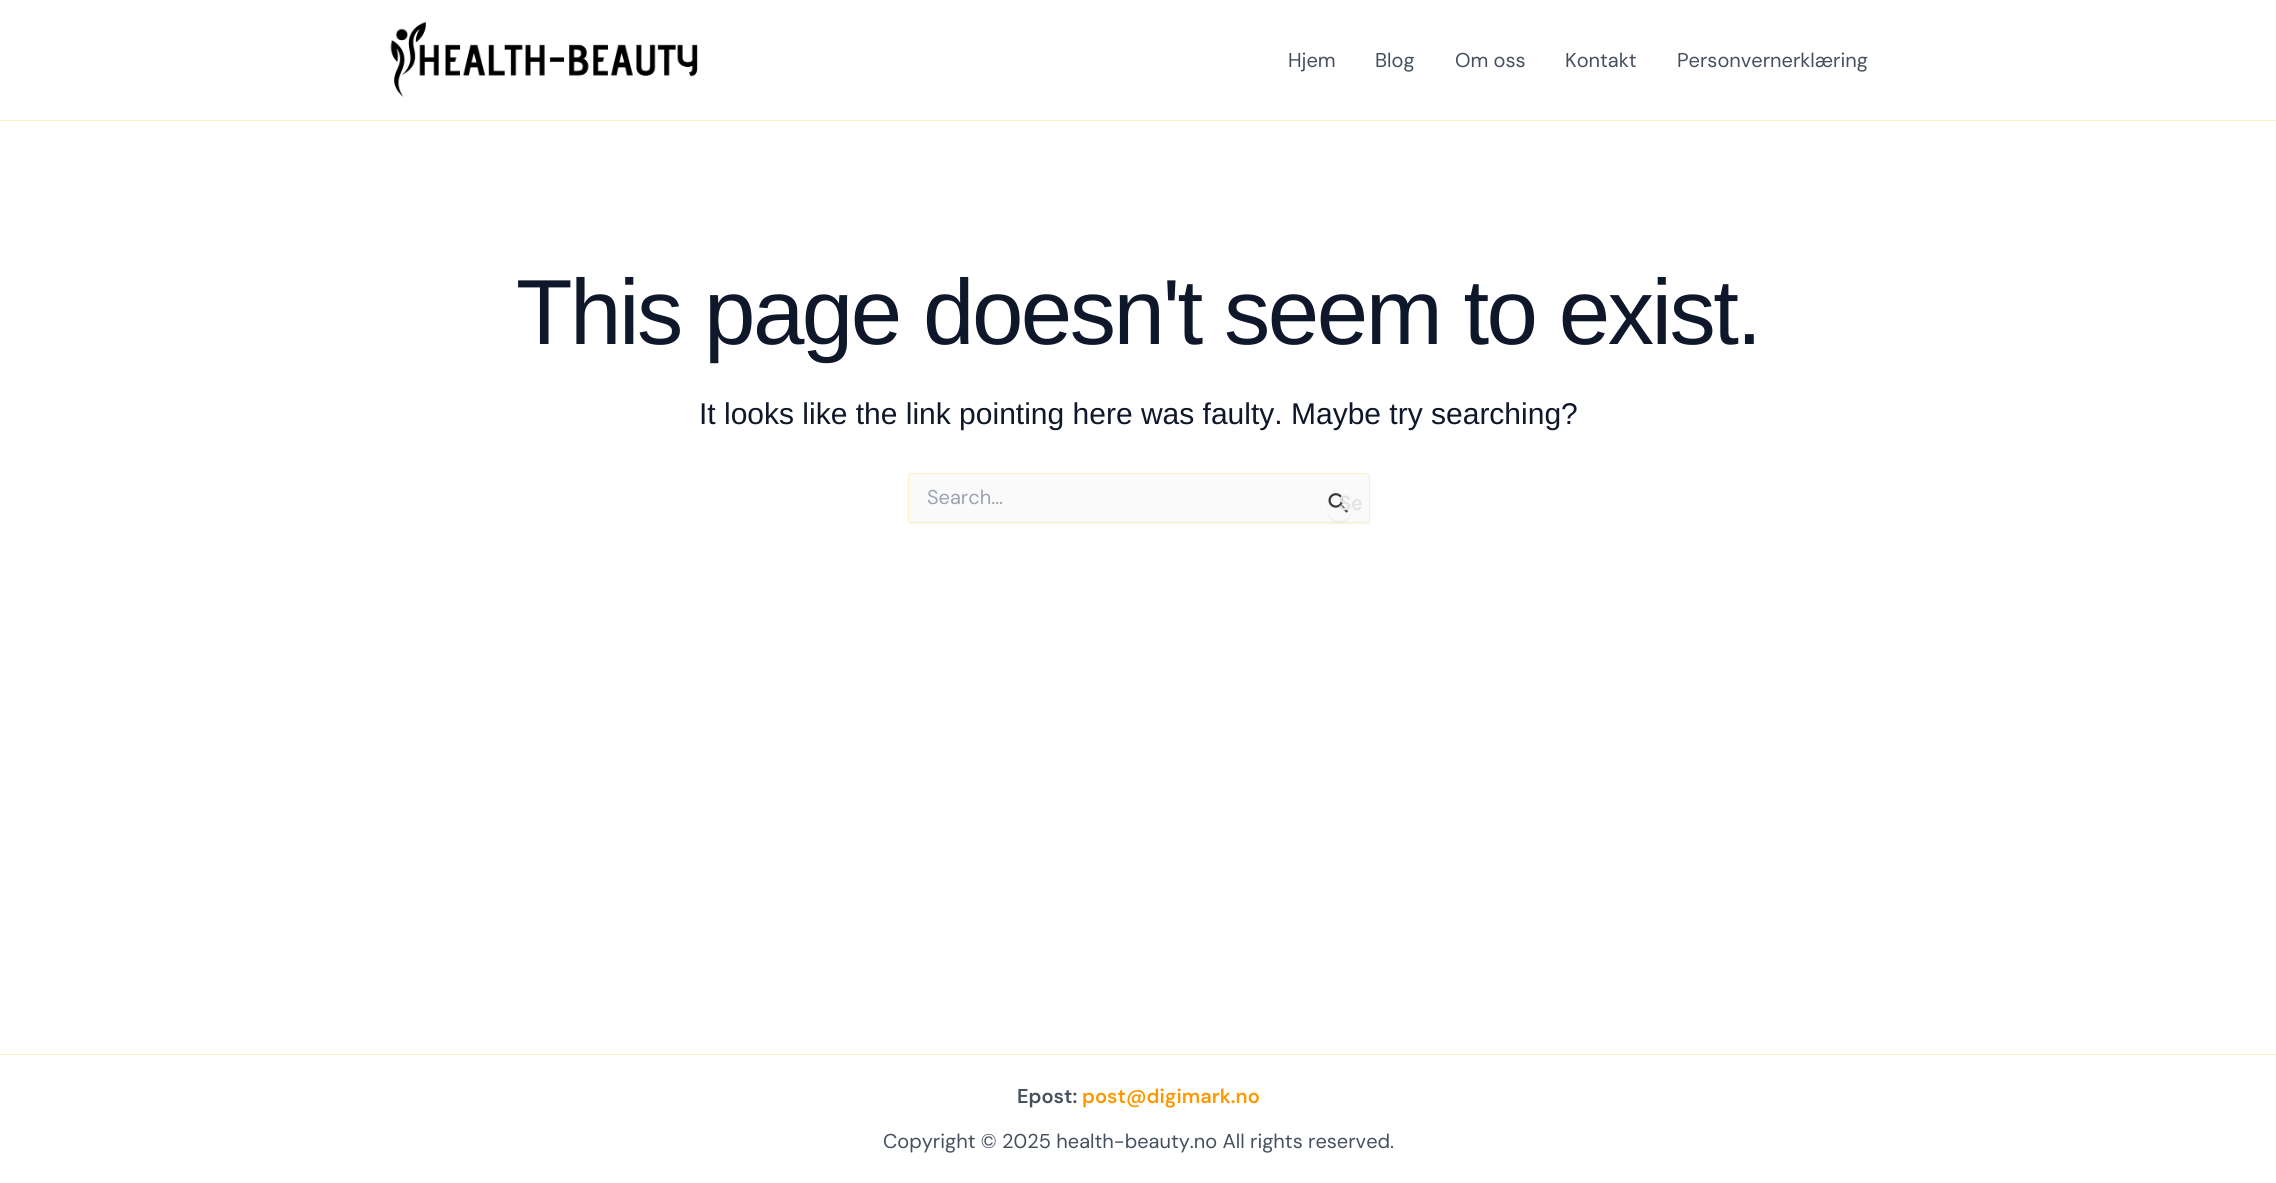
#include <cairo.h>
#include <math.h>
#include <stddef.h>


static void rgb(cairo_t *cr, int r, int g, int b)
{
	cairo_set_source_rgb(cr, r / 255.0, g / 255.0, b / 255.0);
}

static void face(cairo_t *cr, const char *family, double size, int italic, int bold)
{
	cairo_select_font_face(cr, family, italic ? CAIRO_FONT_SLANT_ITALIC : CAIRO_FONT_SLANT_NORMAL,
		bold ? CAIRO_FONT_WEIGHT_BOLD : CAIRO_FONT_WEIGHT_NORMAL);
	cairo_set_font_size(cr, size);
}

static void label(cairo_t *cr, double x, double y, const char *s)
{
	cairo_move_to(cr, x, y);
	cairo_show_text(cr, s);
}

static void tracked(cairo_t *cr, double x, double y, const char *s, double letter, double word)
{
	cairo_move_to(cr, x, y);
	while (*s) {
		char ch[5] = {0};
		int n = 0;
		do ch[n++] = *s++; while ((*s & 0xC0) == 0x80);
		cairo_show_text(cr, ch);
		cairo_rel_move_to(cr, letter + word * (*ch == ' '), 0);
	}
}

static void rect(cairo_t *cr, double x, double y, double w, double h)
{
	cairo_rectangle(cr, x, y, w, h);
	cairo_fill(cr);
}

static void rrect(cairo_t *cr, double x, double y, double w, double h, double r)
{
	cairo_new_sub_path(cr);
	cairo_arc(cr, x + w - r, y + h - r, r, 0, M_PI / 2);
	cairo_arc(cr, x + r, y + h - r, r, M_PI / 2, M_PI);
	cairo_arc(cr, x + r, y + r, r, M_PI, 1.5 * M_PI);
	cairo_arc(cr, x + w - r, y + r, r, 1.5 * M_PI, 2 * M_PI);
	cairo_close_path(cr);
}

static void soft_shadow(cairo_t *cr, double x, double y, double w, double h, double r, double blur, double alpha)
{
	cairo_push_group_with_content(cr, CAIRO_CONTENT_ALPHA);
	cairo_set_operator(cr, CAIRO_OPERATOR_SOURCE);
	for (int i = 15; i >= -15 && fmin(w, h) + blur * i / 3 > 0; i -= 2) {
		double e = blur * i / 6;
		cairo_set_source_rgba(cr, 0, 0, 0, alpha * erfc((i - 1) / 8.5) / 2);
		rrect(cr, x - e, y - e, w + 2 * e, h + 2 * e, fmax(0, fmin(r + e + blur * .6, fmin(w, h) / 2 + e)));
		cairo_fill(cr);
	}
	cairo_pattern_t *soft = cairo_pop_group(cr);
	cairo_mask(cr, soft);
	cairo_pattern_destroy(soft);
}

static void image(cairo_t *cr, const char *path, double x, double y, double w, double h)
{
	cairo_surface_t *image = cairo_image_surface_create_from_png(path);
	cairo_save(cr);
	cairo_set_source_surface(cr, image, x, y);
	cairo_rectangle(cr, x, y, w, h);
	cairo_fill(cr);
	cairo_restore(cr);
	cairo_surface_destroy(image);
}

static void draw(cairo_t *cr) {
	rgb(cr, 255, 255, 255);
	cairo_paint(cr);
	rgb(cr, 249, 240, 200);
	rect(cr, 0, 120, 2276, 1);
	image(cr, "image0.png", 390, 21, 308, 76);
	face(cr, "DM Sans", 20, 0, 0);
	rgb(cr, 69, 79, 94);
	label(cr, 1288, 67, "Hjem");
	label(cr, 1375, 67, "Blog");
	label(cr, 1455, 67, "Om oss");
	label(cr, 1565, 67, "Kontakt");
	label(cr, 1677, 67, "Personvernerklæring");
	face(cr, "Liberation Sans", 92.5, 0, 0);
	rgb(cr, 15, 23, 42);
	tracked(cr, 516, 344, "This page doesn't seem to exist.", -2.5, 0);
	face(cr, "Liberation Sans", 30, 0, 0);
	label(cr, 699, 424, "It looks like the link pointing here was faulty. Maybe try searching?");
	rgb(cr, 0, 0, 0);
	soft_shadow(cr, 908, 474, 462, 50, 2.5, 1, 0.05);
	rgb(cr, 250, 250, 250);
	rrect(cr, 908.5, 473.5, 461, 49, 2);
	cairo_fill_preserve(cr);
	rgb(cr, 249, 240, 200);
	cairo_set_line_width(cr, 1);
	cairo_stroke(cr);
	face(cr, "DM Sans", 20, 0, 0);
	rgb(cr, 156, 163, 175);
	label(cr, 927, 504, "Search...");
	cairo_save(cr);
	cairo_set_fill_rule(cr, CAIRO_FILL_RULE_EVEN_ODD);
	cairo_new_path(cr);
	cairo_move_to(cr, 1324, 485);
	cairo_line_to(cr, 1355, 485);
	cairo_line_to(cr, 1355, 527);
	cairo_line_to(cr, 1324, 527);
	cairo_close_path(cr);
	cairo_move_to(cr, 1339.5, 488);
	cairo_curve_to(cr, 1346, 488, 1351, 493, 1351, 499.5);
	cairo_line_to(cr, 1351, 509.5);
	cairo_curve_to(cr, 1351, 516, 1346, 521, 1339.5, 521);
	cairo_curve_to(cr, 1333, 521, 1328, 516, 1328, 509.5);
	cairo_line_to(cr, 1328, 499.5);
	cairo_curve_to(cr, 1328, 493, 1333, 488, 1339.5, 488);
	cairo_close_path(cr);
	cairo_clip(cr);
	rgb(cr, 0, 0, 0);
	soft_shadow(cr, 1328, 489, 23, 34, 11.5, 1, 0.05);
	cairo_restore(cr);
	image(cr, "image1.png", 1328, 493, 20, 20);
	face(cr, "Karla", 22, 0, 1);
	rgb(cr, 227, 227, 225);
	tracked(cr, 1338, 510, "Se", -1, 0);
	rgb(cr, 249, 240, 200);
	rect(cr, 0, 1054, 2276, 1);
	face(cr, "DM Sans SemiBold", 20, 0, 0);
	rgb(cr, 69, 79, 94);
	label(cr, 1017, 1103, "Epost:");
	rgb(cr, 253, 152, 0);
	label(cr, 1082, 1103, "post@digimark.no");
	face(cr, "DM Sans", 20, 0, 0);
	rgb(cr, 69, 79, 94);
	label(cr, 883, 1148, "Copyright © 2025 health-beauty.no All rights reserved.");
}

int main(void) {
	cairo_surface_t *surface = cairo_image_surface_create(CAIRO_FORMAT_RGB24, 2276, 1183);
	cairo_t *cr = cairo_create(surface);
	cairo_font_options_t *options = cairo_font_options_create();
	cairo_font_options_set_hint_metrics(options, CAIRO_HINT_METRICS_OFF);
	cairo_font_options_set_hint_style(options, CAIRO_HINT_STYLE_NONE);
	cairo_set_font_options(cr, options);
	cairo_set_miter_limit(cr, 4);
	draw(cr);
	cairo_surface_write_to_png(surface, "render.png");
	cairo_font_options_destroy(options);
	cairo_destroy(cr);
	cairo_surface_destroy(surface);
	return 0;
}
